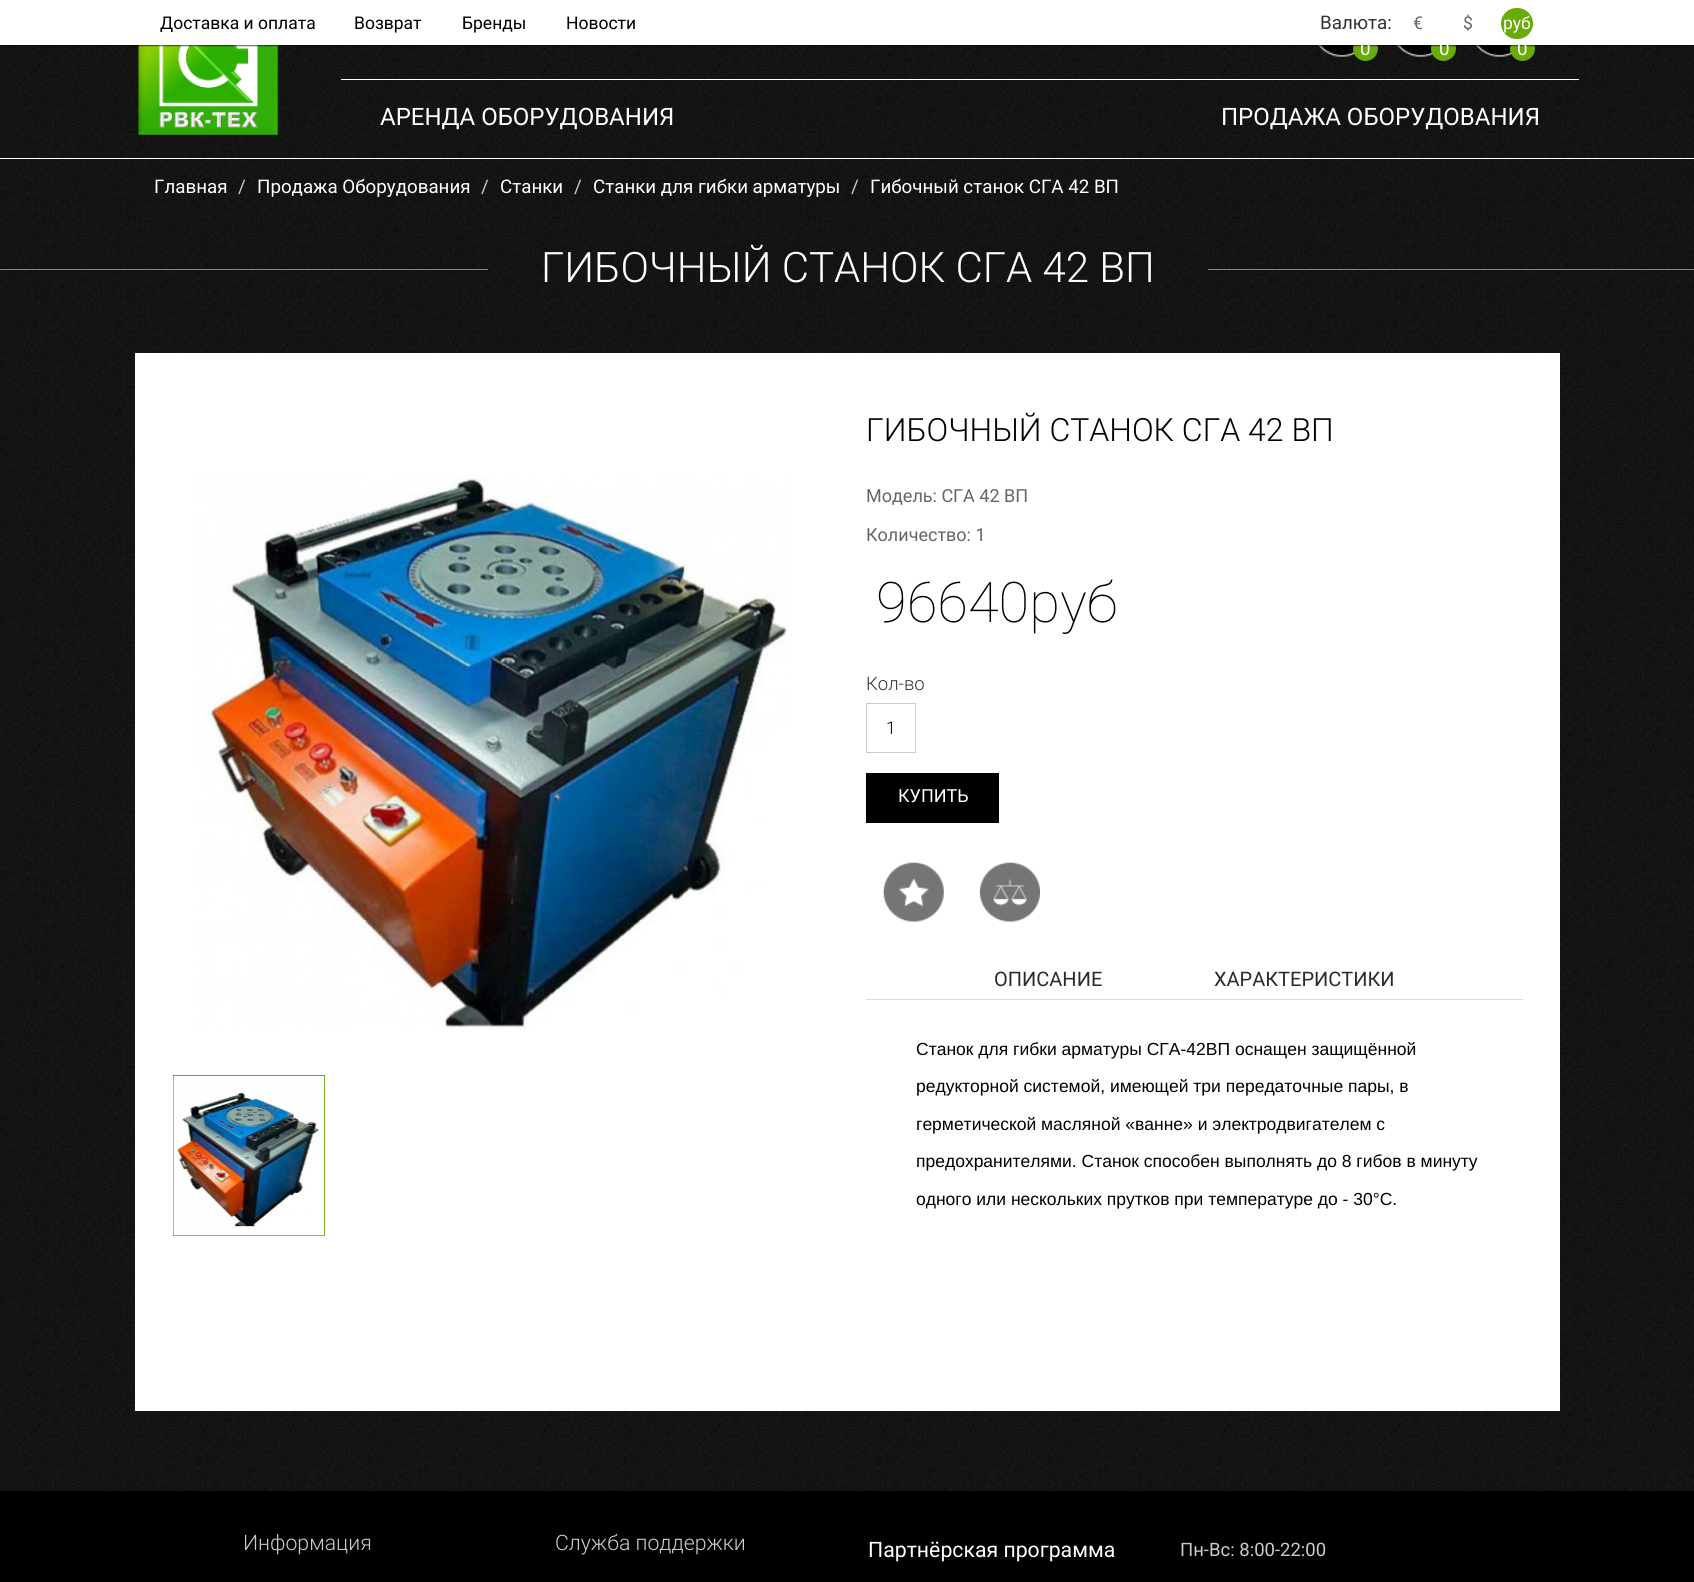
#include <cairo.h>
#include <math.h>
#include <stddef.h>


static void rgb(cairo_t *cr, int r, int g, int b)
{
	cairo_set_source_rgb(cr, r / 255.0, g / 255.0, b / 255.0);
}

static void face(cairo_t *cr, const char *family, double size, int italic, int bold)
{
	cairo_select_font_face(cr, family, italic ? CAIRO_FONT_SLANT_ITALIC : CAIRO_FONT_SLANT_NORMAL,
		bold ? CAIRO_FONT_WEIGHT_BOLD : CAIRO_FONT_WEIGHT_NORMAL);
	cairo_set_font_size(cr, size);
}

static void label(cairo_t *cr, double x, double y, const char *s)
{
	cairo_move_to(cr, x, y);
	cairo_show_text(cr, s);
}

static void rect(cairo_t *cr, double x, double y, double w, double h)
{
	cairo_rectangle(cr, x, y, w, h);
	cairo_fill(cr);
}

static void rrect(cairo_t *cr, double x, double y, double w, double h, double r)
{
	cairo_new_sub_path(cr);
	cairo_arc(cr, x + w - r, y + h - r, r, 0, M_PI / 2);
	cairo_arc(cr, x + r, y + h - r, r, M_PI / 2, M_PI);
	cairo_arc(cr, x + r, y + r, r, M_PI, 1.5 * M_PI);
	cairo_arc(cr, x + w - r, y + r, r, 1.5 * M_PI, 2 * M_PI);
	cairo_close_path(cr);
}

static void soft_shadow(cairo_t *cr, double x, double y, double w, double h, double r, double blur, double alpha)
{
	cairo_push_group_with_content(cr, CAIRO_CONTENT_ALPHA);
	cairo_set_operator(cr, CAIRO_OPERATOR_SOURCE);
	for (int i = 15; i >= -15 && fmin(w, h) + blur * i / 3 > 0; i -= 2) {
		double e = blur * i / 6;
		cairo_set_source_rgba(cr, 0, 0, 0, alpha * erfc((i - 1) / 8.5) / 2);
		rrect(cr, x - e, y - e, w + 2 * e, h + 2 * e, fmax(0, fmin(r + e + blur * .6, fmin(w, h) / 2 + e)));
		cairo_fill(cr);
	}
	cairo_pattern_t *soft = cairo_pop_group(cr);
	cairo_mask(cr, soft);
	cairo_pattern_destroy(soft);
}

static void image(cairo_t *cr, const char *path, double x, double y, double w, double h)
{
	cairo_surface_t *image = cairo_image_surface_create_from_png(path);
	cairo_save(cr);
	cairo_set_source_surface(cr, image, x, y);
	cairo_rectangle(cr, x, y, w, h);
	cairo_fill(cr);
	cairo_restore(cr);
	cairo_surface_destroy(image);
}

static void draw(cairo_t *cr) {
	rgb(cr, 255, 255, 255);
	cairo_paint(cr);
	image(cr, "image0.png", 0, 45, 1694, 1446);
	image(cr, "image1.png", 138, 45, 141, 90);
	rgb(cr, 0, 0, 0);
	cairo_arc(cr, 1342, 27, 29, 0, 2 * M_PI);
	cairo_fill(cr);
	image(cr, "image2.png", 1317, 45, 38, 12);
	rgb(cr, 104, 172, 8);
	cairo_arc(cr, 1365.5, 48.5, 12.5, 0, 2 * M_PI);
	cairo_fill(cr);
	rgb(cr, 0, 0, 0);
	rrect(cr, 1391, -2, 59, 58, 29);
	cairo_fill(cr);
	image(cr, "image3.png", 1396, 45, 37, 12);
	rgb(cr, 104, 172, 8);
	cairo_arc(cr, 1443.5, 48.5, 12.5, 0, 2 * M_PI);
	cairo_fill(cr);
	rgb(cr, 0, 0, 0);
	rrect(cr, 1470, -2, 59, 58, 29);
	cairo_fill(cr);
	image(cr, "image4.png", 1475, 45, 37, 12);
	rgb(cr, 104, 172, 8);
	cairo_arc(cr, 1522.5, 48.5, 12.5, 0, 2 * M_PI);
	cairo_fill(cr);
	rgb(cr, 0, 0, 0);
	soft_shadow(cr, 0, 1, 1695, 45, 0, 0.5, 0.6);
	rgb(cr, 255, 255, 255);
	rect(cr, 0, 0, 1694, 45);
	face(cr, "Roboto", 17.5, 0, 0);
	rgb(cr, 0, 0, 0);
	label(cr, 160, 29, "Доставка и оплата");
	label(cr, 354, 29, "Возврат");
	label(cr, 462, 29, "Бренды");
	label(cr, 566, 29, "Новости");
	face(cr, "Roboto", 18.75, 0, 0);
	rgb(cr, 51, 51, 51);
	label(cr, 1320, 29, "Валюта:");
	face(cr, "Roboto", 17.5, 0, 0);
	rgb(cr, 102, 102, 102);
	label(cr, 1413, 29, "€");
	label(cr, 1463, 29, "$");
	rgb(cr, 104, 172, 8);
	rrect(cr, 1501, 8, 32, 31, 15.5);
	cairo_fill(cr);
	rgb(cr, 255, 255, 255);
	label(cr, 1503, 29, "руб");
	rect(cr, 0, 158, 1694, 1);
	rect(cr, 341, 79, 1238, 1);
	face(cr, "Roboto", 18.75, 0, 0);
	label(cr, 1360, 55, "0");
	label(cr, 1439, 55, "0");
	label(cr, 1517, 55, "0");
	face(cr, "Roboto", 24, 0, 0);
	label(cr, 380, 125, "АРЕНДА ОБОРУДОВАНИЯ");
	label(cr, 1221, 125, "ПРОДАЖА ОБОРУДОВАНИЯ");
	face(cr, "Roboto", 18.75, 0, 0);
	label(cr, 154, 193, "Главная");
	rgb(cr, 204, 204, 204);
	label(cr, 238, 193, "/");
	rgb(cr, 255, 255, 255);
	label(cr, 257, 193, "Продажа Оборудования");
	rgb(cr, 204, 204, 204);
	label(cr, 481, 193, "/");
	rgb(cr, 255, 255, 255);
	label(cr, 500, 193, "Станки");
	rgb(cr, 204, 204, 204);
	label(cr, 574, 193, "/");
	rgb(cr, 255, 255, 255);
	label(cr, 593, 193, "Станки для гибки арматуры");
	rgb(cr, 204, 204, 204);
	label(cr, 851, 193, "/");
	rgb(cr, 255, 255, 255);
	label(cr, 870, 193, "Гибочный станок СГА 42 ВП");
	rgb(cr, 104, 172, 8);
	rect(cr, 0, 269, 488, 1);
	face(cr, "Roboto Light", 42, 0, 0);
	rgb(cr, 255, 255, 255);
	label(cr, 541, 282, "ГИБОЧНЫЙ СТАНОК СГА 42 ВП");
	rgb(cr, 104, 172, 8);
	rect(cr, 1208, 269, 486, 1);
	rgb(cr, 255, 255, 255);
	rect(cr, 135, 353, 1425, 1058);
	image(cr, "image5.png", 195, 475, 592, 556);
	cairo_rectangle(cr, 173.5, 1075.5, 151, 160);
	rgb(cr, 104, 172, 8);
	cairo_set_line_width(cr, 1);
	cairo_stroke(cr);
	image(cr, "image6.png", 173, 1076, 152, 160);
	face(cr, "Roboto Light", 32, 0, 0);
	rgb(cr, 0, 0, 0);
	label(cr, 866, 441, "ГИБОЧНЫЙ СТАНОК СГА 42 ВП");
	face(cr, "Roboto", 18, 0, 0);
	rgb(cr, 102, 102, 102);
	label(cr, 866, 502, "Модель: СГА 42 ВП");
	label(cr, 866, 541, "Количество: 1");
	face(cr, "Roboto Thin", 56, 0, 0);
	rgb(cr, 0, 0, 0);
	label(cr, 876, 622, "96640руб");
	face(cr, "Roboto Light", 18.5, 0, 0);
	rgb(cr, 51, 51, 51);
	label(cr, 866, 690, "Кол-во");
	cairo_rectangle(cr, 866.5, 703.5, 49, 49);
	rgb(cr, 204, 204, 204);
	cairo_stroke(cr);
	face(cr, "Roboto Light", 17.5, 0, 0);
	rgb(cr, 0, 0, 0);
	label(cr, 886, 734, "1");
	rect(cr, 866, 773, 133, 50);
	face(cr, "Roboto", 18, 0, 0);
	rgb(cr, 255, 255, 255);
	label(cr, 898, 802, "КУПИТЬ");
	image(cr, "image7.png", 883, 862, 61, 60);
	image(cr, "image8.png", 980, 862, 60, 60);
	rgb(cr, 221, 221, 221);
	rect(cr, 866, 999, 657, 1);
	face(cr, "Roboto", 20, 0, 0);
	rgb(cr, 43, 43, 43);
	label(cr, 994, 986, "ОПИСАНИЕ");
	label(cr, 1214, 986, "ХАРАКТЕРИСТИКИ");
	face(cr, "Liberation Sans", 17.5, 0, 0);
	rgb(cr, 0, 0, 0);
	label(cr, 916, 1055, "Станок для гибки арматуры СГА-42ВП оснащен защищённой");
	label(cr, 916, 1092, "редукторной системой, имеющей три передаточные пары, в");
	label(cr, 916, 1130, "герметической масляной «ванне» и электродвигателем с");
	label(cr, 916, 1167, "предохранителями. Станок способен выполнять до 8 гибов в минуту");
	label(cr, 916, 1205, "одного или нескольких прутков при температуре до - 30°С.");
	rect(cr, 0, 1491, 1694, 91);
	face(cr, "Roboto Light", 21.25, 0, 0);
	rgb(cr, 204, 204, 204);
	label(cr, 243, 1550, "Информация");
	label(cr, 555, 1550, "Служба поддержки");
	face(cr, "Roboto", 21.25, 0, 0);
	rgb(cr, 255, 255, 255);
	label(cr, 868, 1557, "Партнёрская программа");
	face(cr, "Roboto", 18.5, 0, 0);
	rgb(cr, 204, 204, 204);
	label(cr, 1180, 1556, "Пн-Вс: 8:00-22:00");
}

int main(void) {
	cairo_surface_t *surface = cairo_image_surface_create(CAIRO_FORMAT_RGB24, 1694, 1582);
	cairo_t *cr = cairo_create(surface);
	cairo_font_options_t *options = cairo_font_options_create();
	cairo_font_options_set_hint_metrics(options, CAIRO_HINT_METRICS_OFF);
	cairo_font_options_set_hint_style(options, CAIRO_HINT_STYLE_NONE);
	cairo_set_font_options(cr, options);
	cairo_set_miter_limit(cr, 4);
	draw(cr);
	cairo_surface_write_to_png(surface, "render.png");
	cairo_font_options_destroy(options);
	cairo_destroy(cr);
	cairo_surface_destroy(surface);
	return 0;
}
